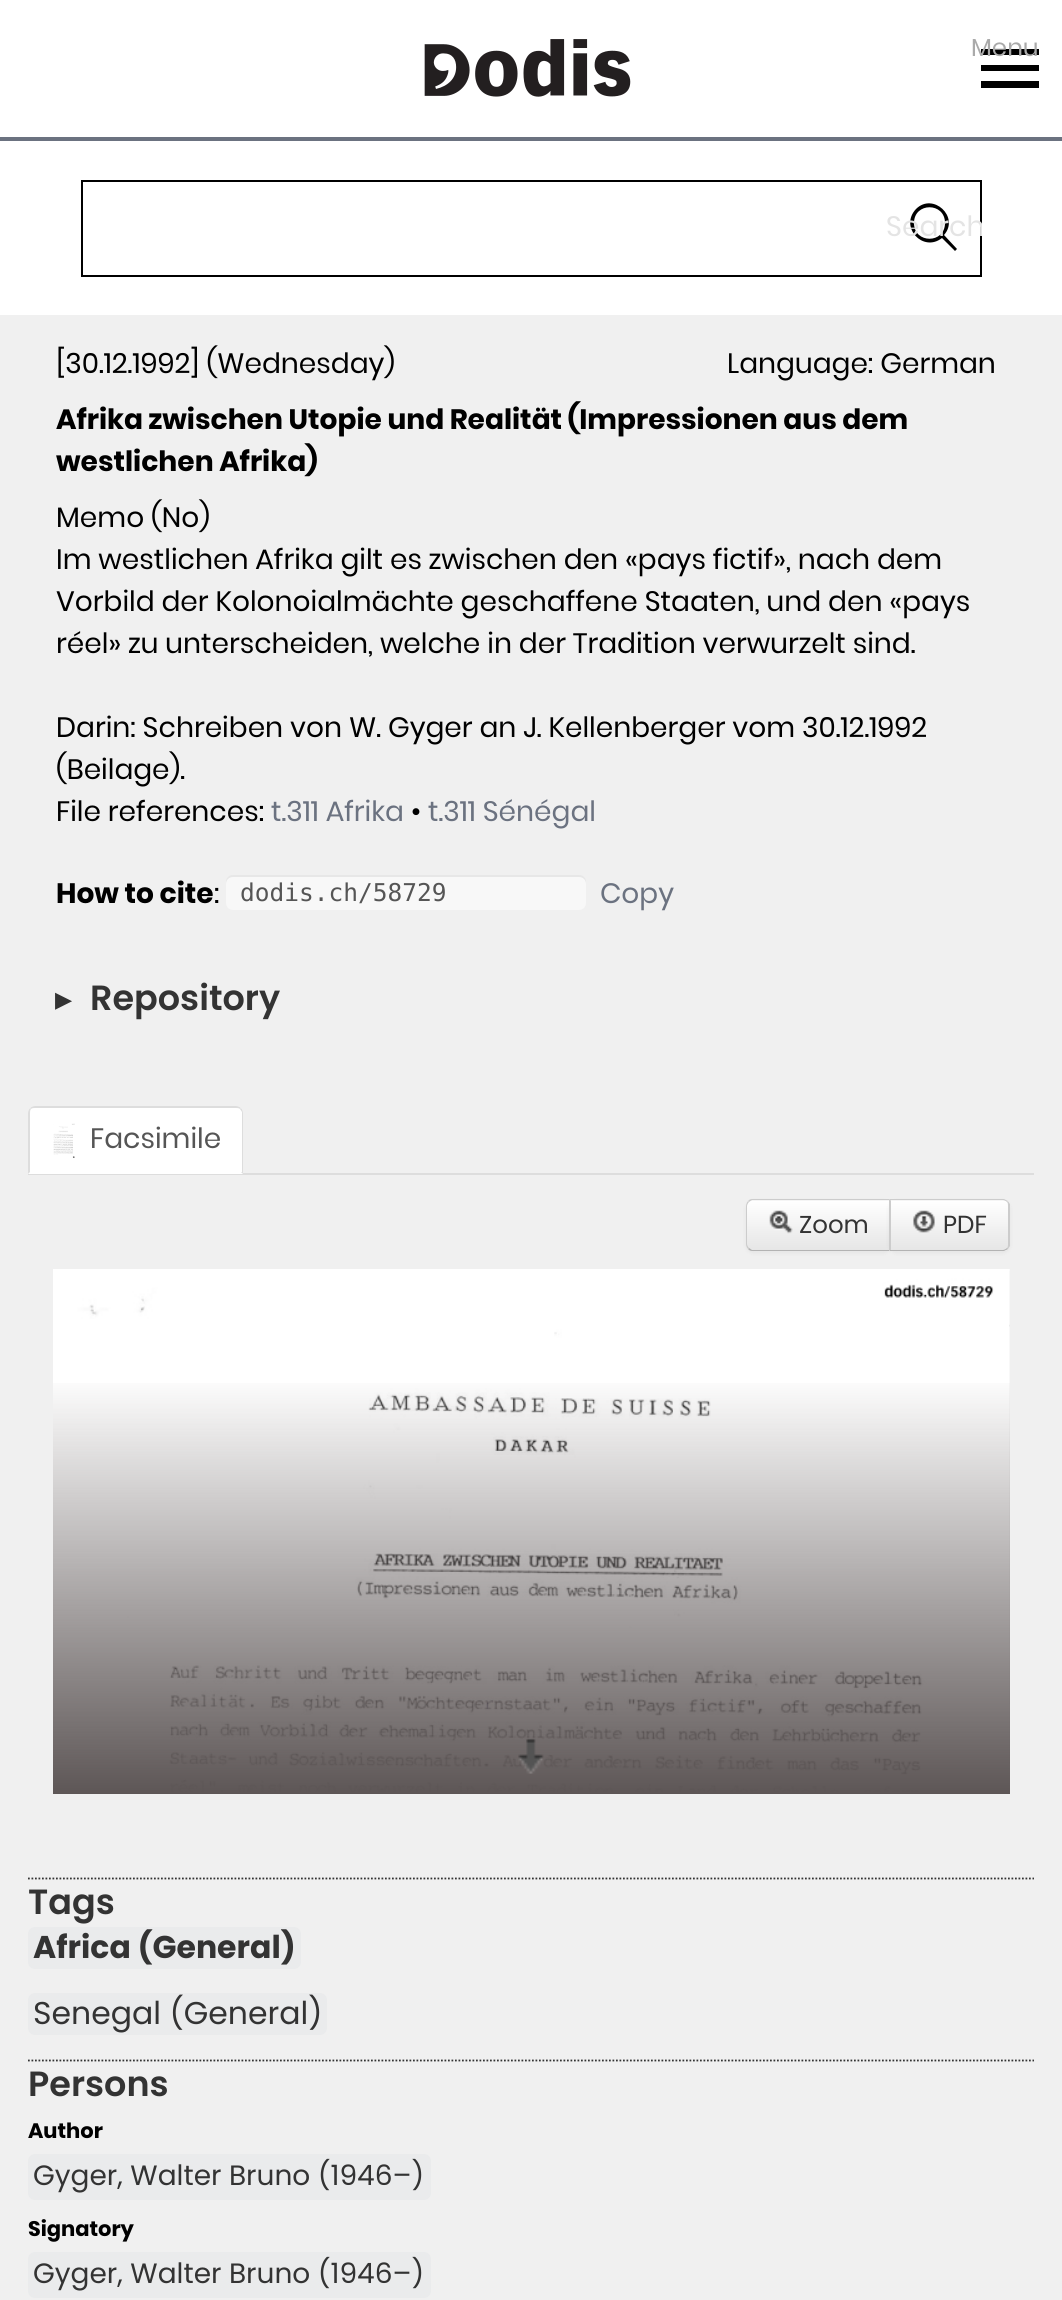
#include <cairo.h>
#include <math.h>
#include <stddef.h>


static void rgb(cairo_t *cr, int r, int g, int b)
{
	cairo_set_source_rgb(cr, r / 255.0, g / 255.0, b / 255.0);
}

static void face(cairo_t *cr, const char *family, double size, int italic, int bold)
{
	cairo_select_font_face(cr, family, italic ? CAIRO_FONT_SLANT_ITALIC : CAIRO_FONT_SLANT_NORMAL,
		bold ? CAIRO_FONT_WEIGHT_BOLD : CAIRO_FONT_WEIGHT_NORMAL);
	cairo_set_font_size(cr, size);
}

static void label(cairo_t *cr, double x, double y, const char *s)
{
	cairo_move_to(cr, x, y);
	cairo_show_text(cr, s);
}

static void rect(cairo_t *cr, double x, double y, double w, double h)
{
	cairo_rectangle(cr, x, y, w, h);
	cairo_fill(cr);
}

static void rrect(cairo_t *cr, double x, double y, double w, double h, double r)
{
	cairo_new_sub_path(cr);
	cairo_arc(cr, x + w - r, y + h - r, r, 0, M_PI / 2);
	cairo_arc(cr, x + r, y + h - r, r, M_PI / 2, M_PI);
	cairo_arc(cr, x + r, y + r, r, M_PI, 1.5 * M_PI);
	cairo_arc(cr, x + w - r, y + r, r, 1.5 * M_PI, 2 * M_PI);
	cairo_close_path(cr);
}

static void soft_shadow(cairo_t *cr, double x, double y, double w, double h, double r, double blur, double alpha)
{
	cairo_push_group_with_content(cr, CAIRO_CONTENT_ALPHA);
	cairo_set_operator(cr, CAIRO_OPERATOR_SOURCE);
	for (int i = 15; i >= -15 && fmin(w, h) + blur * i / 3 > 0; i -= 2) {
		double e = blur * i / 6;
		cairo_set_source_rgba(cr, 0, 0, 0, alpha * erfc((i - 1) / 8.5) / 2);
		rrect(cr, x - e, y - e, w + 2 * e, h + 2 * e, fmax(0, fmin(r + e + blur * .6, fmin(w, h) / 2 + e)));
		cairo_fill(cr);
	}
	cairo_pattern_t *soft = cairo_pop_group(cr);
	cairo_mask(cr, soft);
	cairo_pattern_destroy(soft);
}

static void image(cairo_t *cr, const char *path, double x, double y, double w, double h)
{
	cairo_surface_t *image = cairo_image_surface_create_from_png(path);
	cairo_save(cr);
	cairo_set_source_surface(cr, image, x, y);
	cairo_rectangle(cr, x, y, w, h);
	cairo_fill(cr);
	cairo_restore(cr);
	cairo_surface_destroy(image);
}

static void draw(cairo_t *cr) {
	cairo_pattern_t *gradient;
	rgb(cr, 255, 255, 255);
	cairo_paint(cr);
	rgb(cr, 107, 114, 128);
	rect(cr, 0, 137, 1062, 4);
	image(cr, "image0.png", 424, 39, 207, 58);
	rgb(cr, 0, 0, 0);
	cairo_new_path(cr);
	cairo_move_to(cr, 1039, 88);
	cairo_line_to(cr, 981, 88);
	cairo_line_to(cr, 981, 81);
	cairo_line_to(cr, 1039, 81);
	cairo_close_path(cr);
	cairo_move_to(cr, 1039, 71);
	cairo_line_to(cr, 981, 71);
	cairo_line_to(cr, 981, 65);
	cairo_line_to(cr, 1039, 65);
	cairo_close_path(cr);
	cairo_move_to(cr, 1039, 55);
	cairo_line_to(cr, 981, 55);
	cairo_line_to(cr, 981, 49);
	cairo_line_to(cr, 1039, 49);
	cairo_close_path(cr);
	cairo_fill(cr);
	face(cr, "Poppins", 24.5, 0, 0);
	rgb(cr, 170, 170, 170);
	label(cr, 971, 56, "Menu");
	cairo_rectangle(cr, 82, 181, 899, 95);
	rgb(cr, 0, 0, 0);
	cairo_stroke(cr);
	cairo_new_path(cr);
	cairo_move_to(cr, 957, 249);
	cairo_line_to(cr, 944, 235);
	cairo_curve_to(cr, 960, 217, 933, 192, 916, 209);
	cairo_curve_to(cr, 899, 227, 923, 253, 942, 238);
	cairo_line_to(cr, 955, 251);
	cairo_close_path(cr);
	cairo_move_to(cr, 914, 223);
	cairo_curve_to(cr, 914, 202, 945, 202, 945, 223);
	cairo_curve_to(cr, 945, 244, 914, 244, 914, 223);
	cairo_close_path(cr);
	cairo_fill(cr);
	cairo_save(cr);
	cairo_rectangle(cr, 886, 180, 96, 97);
	cairo_clip(cr);
	face(cr, "Poppins", 28, 0, 0);
	rgb(cr, 228, 228, 228);
	label(cr, 886, 236, "Search");
	cairo_restore(cr);
	rgb(cr, 240, 240, 240);
	rect(cr, 0, 315, 1062, 1985);
	face(cr, "Poppins", 28, 0, 0);
	rgb(cr, 0, 0, 0);
	label(cr, 56, 373, "[30.12.1992] (Wednesday)");
	label(cr, 727, 373, "Language: German");
	face(cr, "Poppins", 28, 0, 1);
	label(cr, 56, 429, "Afrika zwischen Utopie und Realität (Impressionen aus dem");
	label(cr, 56, 471, "westlichen Afrika)");
	face(cr, "Poppins", 28, 0, 0);
	label(cr, 56, 527, "Memo (No)");
	label(cr, 56, 569, "Im westlichen Afrika gilt es zwischen den «pays fictif», nach dem");
	label(cr, 56, 611, "Vorbild der Kolonoialmächte geschaffene Staaten, und den «pays");
	label(cr, 56, 653, "réel» zu unterscheiden, welche in der Tradition verwurzelt sind.");
	label(cr, 56, 737, "Darin: Schreiben von W. Gyger an J. Kellenberger vom 30.12.1992");
	label(cr, 56, 779, "(Beilage).");
	label(cr, 56, 821, "File references:");
	rgb(cr, 107, 114, 128);
	label(cr, 271, 821, "t.311 Afrika");
	rgb(cr, 0, 0, 0);
	label(cr, 411, 821, "•");
	rgb(cr, 107, 114, 128);
	label(cr, 428, 821, "t.311 Sénégal");
	face(cr, "Poppins", 28, 0, 1);
	rgb(cr, 0, 0, 0);
	label(cr, 56, 903, "How to cite");
	face(cr, "Poppins", 28, 0, 0);
	label(cr, 214, 903, ":");
	rgb(cr, 248, 248, 248);
	rrect(cr, 226, 875, 360, 35, 7);
	cairo_fill(cr);
	cairo_set_source_rgba(cr, 0, 0, 0, 0.07);
	cairo_new_path(cr);
	cairo_move_to(cr, 233, 877);
	cairo_line_to(cr, 579, 877);
	cairo_curve_to(cr, 583, 877, 586, 880, 586, 884);
	cairo_line_to(cr, 586, 882);
	cairo_curve_to(cr, 586, 878, 583, 875, 579, 875);
	cairo_line_to(cr, 233, 875);
	cairo_curve_to(cr, 229, 875, 226, 878, 226, 882);
	cairo_line_to(cr, 226, 884);
	cairo_curve_to(cr, 226, 880, 229, 877, 233, 877);
	cairo_close_path(cr);
	cairo_fill(cr);
	face(cr, "DejaVu Sans Mono", 24.5, 0, 0);
	rgb(cr, 85, 85, 85);
	label(cr, 240, 901, "dodis.ch/58729");
	face(cr, "Poppins", 28, 0, 0);
	rgb(cr, 107, 114, 128);
	label(cr, 600, 903, "Copy");
	face(cr, "DejaVu Sans", 21, 0, 1);
	rgb(cr, 51, 51, 51);
	label(cr, 55, 1007, "▶");
	face(cr, "Poppins SemiBold", 35, 0, 0);
	label(cr, 90, 1010, "Repository");
	rgb(cr, 221, 221, 221);
	rect(cr, 28, 1173, 1006, 2);
	rgb(cr, 255, 255, 255);
	cairo_new_path(cr);
	cairo_move_to(cr, 35, 1106);
	cairo_line_to(cr, 236, 1106);
	cairo_curve_to(cr, 240, 1106, 243, 1109, 243, 1113);
	cairo_line_to(cr, 243, 1174);
	cairo_line_to(cr, 28, 1174);
	cairo_line_to(cr, 28, 1113);
	cairo_curve_to(cr, 28, 1109, 31, 1106, 35, 1106);
	cairo_close_path(cr);
	cairo_fill(cr);
	rgb(cr, 221, 221, 221);
	cairo_new_path(cr);
	cairo_move_to(cr, 35, 1106);
	cairo_curve_to(cr, 33, 1106, 31, 1107, 30, 1108);
	cairo_line_to(cr, 31, 1109);
	cairo_curve_to(cr, 32, 1108, 34, 1108, 35, 1108);
	cairo_line_to(cr, 236, 1108);
	cairo_curve_to(cr, 237, 1108, 239, 1108, 240, 1109);
	cairo_line_to(cr, 241, 1108);
	cairo_curve_to(cr, 240, 1107, 238, 1106, 236, 1106);
	cairo_close_path(cr);
	cairo_fill(cr);
	cairo_new_path(cr);
	cairo_move_to(cr, 241, 1108);
	cairo_curve_to(cr, 242, 1109, 243, 1111, 243, 1113);
	cairo_line_to(cr, 243, 1174);
	cairo_line_to(cr, 241, 1172);
	cairo_line_to(cr, 242, 1172);
	cairo_line_to(cr, 242, 1112);
	cairo_line_to(cr, 240, 1109);
	cairo_close_path(cr);
	cairo_fill(cr);
	cairo_new_path(cr);
	cairo_move_to(cr, 28, 1113);
	cairo_line_to(cr, 28, 1174);
	cairo_line_to(cr, 30, 1172);
	cairo_line_to(cr, 30, 1113);
	cairo_curve_to(cr, 30, 1112, 30, 1110, 31, 1109);
	cairo_line_to(cr, 30, 1108);
	cairo_curve_to(cr, 29, 1109, 28, 1111, 28, 1113);
	cairo_close_path(cr);
	cairo_fill(cr);
	image(cr, "image1.png", 53, 1123, 22, 35);
	face(cr, "Poppins", 28, 0, 0);
	rgb(cr, 85, 85, 85);
	label(cr, 90, 1148, "Facsimile");
	rgb(cr, 0, 0, 0);
	soft_shadow(cr, 746, 1201, 145, 52, 7, 2, 0.05);
	rgb(cr, 245, 245, 245);
	cairo_new_path(cr);
	cairo_move_to(cr, 753, 1199);
	cairo_line_to(cr, 891, 1199);
	cairo_line_to(cr, 891, 1251);
	cairo_line_to(cr, 753, 1251);
	cairo_curve_to(cr, 749, 1251, 746, 1248, 746, 1244);
	cairo_line_to(cr, 746, 1206);
	cairo_curve_to(cr, 746, 1202, 749, 1199, 753, 1199);
	cairo_close_path(cr);
	cairo_fill(cr);
	cairo_save(cr);
	cairo_new_path(cr);
	cairo_move_to(cr, 753, 1199);
	cairo_line_to(cr, 891, 1199);
	cairo_line_to(cr, 891, 1251);
	cairo_line_to(cr, 753, 1251);
	cairo_curve_to(cr, 749, 1251, 746, 1248, 746, 1244);
	cairo_line_to(cr, 746, 1206);
	cairo_curve_to(cr, 746, 1202, 749, 1199, 753, 1199);
	cairo_close_path(cr);
	cairo_clip(cr);
	gradient = cairo_pattern_create_linear(818, 1201, 818, 1250);
	cairo_pattern_add_color_stop_rgba(gradient, 0, 1, 1, 1, 1);
	cairo_pattern_add_color_stop_rgba(gradient, 1, 0.902, 0.902, 0.902, 1);
	cairo_set_source(cr, gradient);
	cairo_pattern_destroy(gradient);
	rect(cr, 746, 1201, 143, 49);
	cairo_restore(cr);
	rgb(cr, 204, 204, 204);
	cairo_new_path(cr);
	cairo_move_to(cr, 752, 1199);
	cairo_curve_to(cr, 750, 1199, 749, 1200, 748, 1201);
	cairo_line_to(cr, 749, 1202);
	cairo_line_to(cr, 752, 1200);
	cairo_line_to(cr, 889, 1200);
	cairo_line_to(cr, 890, 1199);
	cairo_close_path(cr);
	cairo_fill(cr);
	rgb(cr, 179, 179, 179);
	cairo_new_path(cr);
	cairo_move_to(cr, 890, 1251);
	cairo_line_to(cr, 752, 1251);
	cairo_curve_to(cr, 750, 1251, 749, 1250, 748, 1249);
	cairo_line_to(cr, 749, 1248);
	cairo_line_to(cr, 752, 1250);
	cairo_line_to(cr, 889, 1250);
	cairo_close_path(cr);
	cairo_fill(cr);
	rgb(cr, 204, 204, 204);
	cairo_new_path(cr);
	cairo_move_to(cr, 748, 1201);
	cairo_curve_to(cr, 747, 1202, 746, 1204, 746, 1206);
	cairo_line_to(cr, 746, 1244);
	cairo_curve_to(cr, 746, 1246, 747, 1248, 748, 1249);
	cairo_line_to(cr, 749, 1248);
	cairo_curve_to(cr, 748, 1247, 747, 1245, 747, 1244);
	cairo_line_to(cr, 747, 1206);
	cairo_curve_to(cr, 747, 1205, 748, 1203, 749, 1202);
	cairo_close_path(cr);
	cairo_fill(cr);
	image(cr, "image2.png", 769, 1210, 24, 24);
	face(cr, "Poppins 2", 24.5, 0, 0);
	rgb(cr, 51, 51, 51);
	label(cr, 799, 1233, "Zoom");
	rgb(cr, 0, 0, 0);
	soft_shadow(cr, 889, 1201, 121, 52, 7, 2, 0.05);
	rgb(cr, 245, 245, 245);
	cairo_new_path(cr);
	cairo_move_to(cr, 889, 1199);
	cairo_line_to(cr, 1003, 1199);
	cairo_curve_to(cr, 1007, 1199, 1010, 1202, 1010, 1206);
	cairo_line_to(cr, 1010, 1244);
	cairo_curve_to(cr, 1010, 1248, 1007, 1251, 1003, 1251);
	cairo_line_to(cr, 889, 1251);
	cairo_close_path(cr);
	cairo_fill(cr);
	cairo_save(cr);
	cairo_new_path(cr);
	cairo_move_to(cr, 889, 1199);
	cairo_line_to(cr, 1003, 1199);
	cairo_curve_to(cr, 1007, 1199, 1010, 1202, 1010, 1206);
	cairo_line_to(cr, 1010, 1244);
	cairo_curve_to(cr, 1010, 1248, 1007, 1251, 1003, 1251);
	cairo_line_to(cr, 889, 1251);
	cairo_close_path(cr);
	cairo_clip(cr);
	gradient = cairo_pattern_create_linear(949, 1201, 949, 1250);
	cairo_pattern_add_color_stop_rgba(gradient, 0, 1, 1, 1, 1);
	cairo_pattern_add_color_stop_rgba(gradient, 1, 0.902, 0.902, 0.902, 1);
	cairo_set_source(cr, gradient);
	cairo_pattern_destroy(gradient);
	rect(cr, 890, 1201, 120, 49);
	cairo_restore(cr);
	rgb(cr, 204, 204, 204);
	cairo_new_path(cr);
	cairo_move_to(cr, 891, 1200);
	cairo_line_to(cr, 1003, 1200);
	cairo_curve_to(cr, 1004, 1200, 1006, 1201, 1007, 1202);
	cairo_line_to(cr, 1008, 1201);
	cairo_line_to(cr, 1004, 1199);
	cairo_line_to(cr, 889, 1199);
	cairo_line_to(cr, 891, 1201);
	cairo_close_path(cr);
	cairo_fill(cr);
	cairo_new_path(cr);
	cairo_move_to(cr, 1008, 1201);
	cairo_line_to(cr, 1010, 1204);
	cairo_line_to(cr, 1010, 1246);
	cairo_line_to(cr, 1008, 1249);
	cairo_line_to(cr, 1007, 1248);
	cairo_curve_to(cr, 1008, 1247, 1008, 1246, 1008, 1244);
	cairo_line_to(cr, 1008, 1206);
	cairo_curve_to(cr, 1008, 1204, 1008, 1203, 1007, 1202);
	cairo_close_path(cr);
	cairo_fill(cr);
	rgb(cr, 179, 179, 179);
	cairo_new_path(cr);
	cairo_move_to(cr, 1008, 1249);
	cairo_line_to(cr, 1004, 1251);
	cairo_line_to(cr, 889, 1251);
	cairo_line_to(cr, 891, 1249);
	cairo_line_to(cr, 891, 1250);
	cairo_line_to(cr, 1003, 1250);
	cairo_curve_to(cr, 1004, 1250, 1006, 1249, 1007, 1248);
	cairo_close_path(cr);
	cairo_fill(cr);
	rgb(cr, 204, 204, 204);
	cairo_new_path(cr);
	cairo_move_to(cr, 889, 1199);
	cairo_line_to(cr, 891, 1201);
	cairo_line_to(cr, 891, 1249);
	cairo_line_to(cr, 889, 1251);
	cairo_close_path(cr);
	cairo_fill(cr);
	image(cr, "image3.png", 913, 1210, 22, 23);
	face(cr, "Poppins", 24.5, 0, 0);
	rgb(cr, 51, 51, 51);
	label(cr, 943, 1233, "PDF");
	image(cr, "image5.png", 1009, 1269, 1, 523);
	image(cr, "image4.png", 53, 1269, 957, 523);
	gradient = cairo_pattern_create_linear(531, 1269, 531, 1794);
	cairo_pattern_add_color_stop_rgba(gradient, 0.2, 0.365, 0.337, 0.337, 0);
	cairo_pattern_add_color_stop_rgba(gradient, 1, 0.365, 0.337, 0.337, 1);
	cairo_set_source(cr, gradient);
	cairo_pattern_destroy(gradient);
	rect(cr, 53, 1383, 957, 411);
	image(cr, "image6.png", 518, 1738, 26, 36);
	cairo_new_path(cr);
	cairo_move_to(cr, 28, 1878.5);
	cairo_line_to(cr, 1034, 1878.5);
	rgb(cr, 51, 51, 51);
	cairo_set_line_width(cr, 1.8);
	cairo_set_dash(cr, (double[]){1.75, 1.75}, 2, 0);
	cairo_stroke(cr);
	face(cr, "Poppins SemiBold", 35, 0, 0);
	label(cr, 28, 1914, "Tags");
	rgb(cr, 234, 235, 236);
	rrect(cr, 28, 1927, 273, 42, 7);
	cairo_fill(cr);
	face(cr, "Poppins 2", 31.5, 0, 1);
	rgb(cr, 51, 51, 51);
	label(cr, 33, 1958, "Africa (General)");
	rgb(cr, 234, 235, 236);
	rrect(cr, 28, 1993, 299, 42, 7);
	cairo_fill(cr);
	face(cr, "Poppins 2", 31.5, 0, 0);
	rgb(cr, 51, 51, 51);
	label(cr, 33, 2024, "Senegal (General)");
	cairo_new_path(cr);
	cairo_move_to(cr, 28, 2060.5);
	cairo_line_to(cr, 1034, 2060.5);
	cairo_stroke(cr);
	face(cr, "Poppins SemiBold", 35, 0, 0);
	label(cr, 28, 2096, "Persons");
	face(cr, "Poppins", 21, 0, 1);
	rgb(cr, 0, 0, 0);
	label(cr, 28, 2138, "Author");
	rgb(cr, 234, 235, 236);
	rrect(cr, 28, 2154, 403, 46, 7);
	cairo_fill(cr);
	face(cr, "Poppins 2", 28, 0, 0);
	rgb(cr, 51, 51, 51);
	label(cr, 33, 2185, "Gyger, Walter Bruno (1946–)");
	face(cr, "Poppins", 21, 0, 1);
	rgb(cr, 0, 0, 0);
	label(cr, 28, 2236, "Signatory");
	rgb(cr, 234, 235, 236);
	rrect(cr, 28, 2252, 403, 46, 7);
	cairo_fill(cr);
	face(cr, "Poppins 2", 28, 0, 0);
	rgb(cr, 51, 51, 51);
	label(cr, 33, 2283, "Gyger, Walter Bruno (1946–)");
}

int main(void) {
	cairo_surface_t *surface = cairo_image_surface_create(CAIRO_FORMAT_RGB24, 1062, 2300);
	cairo_t *cr = cairo_create(surface);
	cairo_font_options_t *options = cairo_font_options_create();
	cairo_font_options_set_hint_metrics(options, CAIRO_HINT_METRICS_OFF);
	cairo_font_options_set_hint_style(options, CAIRO_HINT_STYLE_NONE);
	cairo_set_font_options(cr, options);
	cairo_set_miter_limit(cr, 4);
	draw(cr);
	cairo_surface_write_to_png(surface, "render.png");
	cairo_font_options_destroy(options);
	cairo_destroy(cr);
	cairo_surface_destroy(surface);
	return 0;
}
